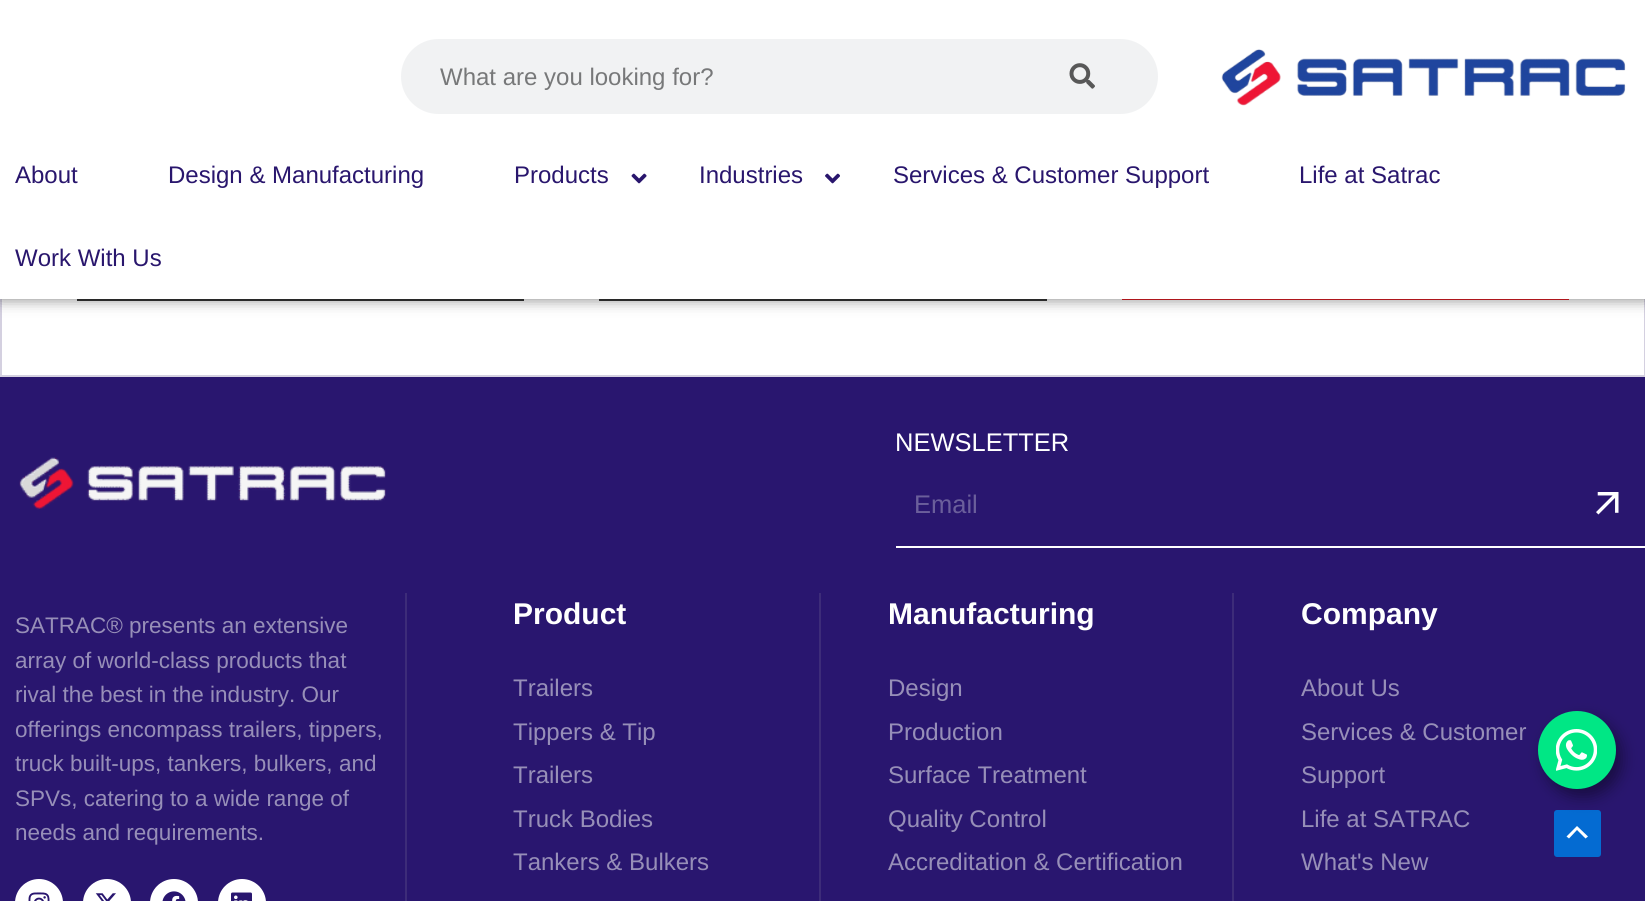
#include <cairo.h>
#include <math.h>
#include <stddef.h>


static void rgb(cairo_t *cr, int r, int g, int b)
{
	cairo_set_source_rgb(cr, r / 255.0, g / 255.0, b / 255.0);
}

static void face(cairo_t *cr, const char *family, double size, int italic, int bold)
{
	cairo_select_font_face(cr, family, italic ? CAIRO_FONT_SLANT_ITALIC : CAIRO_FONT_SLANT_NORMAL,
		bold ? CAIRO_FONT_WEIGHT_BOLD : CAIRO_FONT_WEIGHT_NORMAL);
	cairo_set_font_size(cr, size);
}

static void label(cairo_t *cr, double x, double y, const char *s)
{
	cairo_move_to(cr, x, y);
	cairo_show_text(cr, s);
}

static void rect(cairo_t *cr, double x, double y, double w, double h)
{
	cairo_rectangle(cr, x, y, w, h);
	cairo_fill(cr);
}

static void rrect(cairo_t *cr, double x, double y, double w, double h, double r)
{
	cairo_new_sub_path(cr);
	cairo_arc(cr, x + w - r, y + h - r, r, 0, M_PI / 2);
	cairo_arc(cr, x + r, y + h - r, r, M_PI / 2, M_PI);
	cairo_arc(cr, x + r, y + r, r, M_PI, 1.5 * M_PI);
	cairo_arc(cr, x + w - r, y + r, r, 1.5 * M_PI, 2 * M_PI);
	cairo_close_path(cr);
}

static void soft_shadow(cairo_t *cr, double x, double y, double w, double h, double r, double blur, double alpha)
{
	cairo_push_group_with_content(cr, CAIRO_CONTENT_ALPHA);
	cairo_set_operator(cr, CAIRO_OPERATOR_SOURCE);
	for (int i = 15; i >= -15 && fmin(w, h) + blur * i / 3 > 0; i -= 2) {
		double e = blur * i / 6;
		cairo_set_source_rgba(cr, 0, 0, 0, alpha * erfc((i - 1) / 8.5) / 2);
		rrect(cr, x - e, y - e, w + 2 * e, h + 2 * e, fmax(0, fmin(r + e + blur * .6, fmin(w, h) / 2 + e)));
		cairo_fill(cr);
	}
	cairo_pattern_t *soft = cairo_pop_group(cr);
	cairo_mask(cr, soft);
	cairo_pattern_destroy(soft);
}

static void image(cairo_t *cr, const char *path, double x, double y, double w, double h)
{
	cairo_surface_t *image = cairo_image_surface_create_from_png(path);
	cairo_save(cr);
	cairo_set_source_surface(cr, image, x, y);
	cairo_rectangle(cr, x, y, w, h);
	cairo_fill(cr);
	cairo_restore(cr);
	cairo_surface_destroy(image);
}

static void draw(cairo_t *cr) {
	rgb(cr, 41, 22, 111);
	cairo_paint(cr);
	rgb(cr, 255, 255, 255);
	rect(cr, 2, 299, 1642, 76);
	cairo_rectangle(cr, 1, -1, 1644, 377);
	rgb(cr, 212, 208, 224);
	cairo_stroke(cr);
	rgb(cr, 54, 54, 54);
	rect(cr, 77, 299, 447, 2);
	rect(cr, 599, 299, 448, 2);
	rgb(cr, 233, 29, 38);
	rect(cr, 1122, 299, 447, 1);
	rgb(cr, 0, 0, 0);
	soft_shadow(cr, 0, 120, 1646, 179, 0, 7.5, 0.5);
	rgb(cr, 255, 255, 255);
	rect(cr, 0, 0, 1645, 299);
	rgb(cr, 241, 242, 243);
	rrect(cr, 401, 39, 757, 75, 37.5);
	cairo_fill(cr);
	face(cr, "Liberation Sans", 24, 0, 0);
	rgb(cr, 119, 120, 121);
	label(cr, 440, 85, "What are you looking for?");
	image(cr, "image0.png", 1069, 63, 26, 26);
	image(cr, "image1.png", 1221, 49, 405, 57);
	rgb(cr, 41, 22, 109);
	label(cr, 15, 183, "About");
	label(cr, 168, 183, "Design & Manufacturing");
	label(cr, 514, 183, "Products");
	image(cr, "image2.png", 631, 173, 16, 11);
	label(cr, 699, 183, "Industries");
	image(cr, "image3.png", 825, 173, 15, 11);
	label(cr, 893, 183, "Services & Customer Support");
	label(cr, 1299, 183, "Life at Satrac");
	label(cr, 15, 266, "Work With Us");
	image(cr, "image4.png", 19, 457, 367, 53);
	face(cr, "Liberation Sans", 25.5, 0, 0);
	rgb(cr, 255, 255, 255);
	label(cr, 895, 451, "NEWSLETTER");
	rect(cr, 896, 546, 749, 2);
	rgb(cr, 107, 95, 155);
	label(cr, 914, 513, "Email");
	image(cr, "image5.png", 1596, 492, 23, 23);
	rgb(cr, 61, 44, 121);
	rect(cr, 405, 593, 2, 308);
	face(cr, "Liberation Sans", 22.5, 0, 0);
	rgb(cr, 151, 143, 184);
	label(cr, 15, 633, "SATRAC® presents an extensive");
	label(cr, 15, 668, "array of world-class products that");
	label(cr, 15, 702, "rival the best in the industry. Our");
	label(cr, 15, 737, "offerings encompass trailers, tippers,");
	label(cr, 15, 771, "truck built-ups, tankers, bulkers, and");
	label(cr, 15, 806, "SPVs, catering to a wide range of");
	label(cr, 15, 840, "needs and requirements.");
	rgb(cr, 255, 255, 255);
	rrect(cr, 15, 879, 48, 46, 24);
	cairo_fill(cr);
	image(cr, "image6.png", 28, 892, 22, 9);
	rrect(cr, 83, 879, 48, 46, 24);
	cairo_fill(cr);
	image(cr, "image7.png", 95, 893, 21, 8);
	rrect(cr, 150, 879, 48, 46, 24);
	cairo_fill(cr);
	image(cr, "image8.png", 162, 891, 24, 10);
	rrect(cr, 218, 879, 48, 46, 24);
	cairo_fill(cr);
	image(cr, "image9.png", 231, 892, 21, 9);
	rgb(cr, 61, 44, 121);
	rect(cr, 819, 593, 2, 308);
	face(cr, "Liberation Sans", 30, 0, 1);
	rgb(cr, 255, 255, 255);
	label(cr, 513, 624, "Product");
	face(cr, "Liberation Sans", 24, 0, 0);
	rgb(cr, 151, 143, 184);
	label(cr, 513, 696, "Trailers");
	label(cr, 513, 740, "Tippers & Tip");
	label(cr, 513, 783, "Trailers");
	label(cr, 513, 827, "Truck Bodies");
	label(cr, 513, 870, "Tankers & Bulkers");
	rgb(cr, 61, 44, 121);
	rect(cr, 1232, 593, 2, 308);
	face(cr, "Liberation Sans", 30, 0, 1);
	rgb(cr, 255, 255, 255);
	label(cr, 888, 624, "Manufacturing");
	face(cr, "Liberation Sans", 24, 0, 0);
	rgb(cr, 151, 143, 184);
	label(cr, 888, 696, "Design");
	label(cr, 888, 740, "Production");
	label(cr, 888, 783, "Surface Treatment");
	label(cr, 888, 827, "Quality Control");
	label(cr, 888, 870, "Accreditation & Certification");
	face(cr, "Liberation Sans", 30, 0, 1);
	rgb(cr, 255, 255, 255);
	label(cr, 1301, 624, "Company");
	face(cr, "Liberation Sans", 24, 0, 0);
	rgb(cr, 151, 143, 184);
	label(cr, 1301, 696, "About Us");
	label(cr, 1301, 740, "Services & Customer");
	label(cr, 1301, 783, "Support");
	label(cr, 1301, 827, "Life at SATRAC");
	label(cr, 1301, 870, "What's New");
	rgb(cr, 4, 107, 210);
	rrect(cr, 1554, 810, 47, 47, 3);
	cairo_fill(cr);
	rgb(cr, 0, 0, 0);
	soft_shadow(cr, 1544, 719, 78, 78, 39, 7.5, 0.4);
	rgb(cr, 0, 231, 133);
	cairo_arc(cr, 1577, 750, 39, 0, 2 * M_PI);
	cairo_fill(cr);
	image(cr, "image10.png", 1556, 729, 41, 42);
	rgb(cr, 255, 255, 255);
	cairo_new_path(cr);
	cairo_move_to(cr, 1588, 836.5);
	cairo_line_to(cr, 1577, 826);
	cairo_line_to(cr, 1566.5, 836.5);
	cairo_line_to(cr, 1569, 838.5);
	cairo_line_to(cr, 1577, 830);
	cairo_line_to(cr, 1585.5, 838.5);
	cairo_close_path(cr);
	cairo_fill(cr);
}

int main(void) {
	cairo_surface_t *surface = cairo_image_surface_create(CAIRO_FORMAT_RGB24, 1645, 901);
	cairo_t *cr = cairo_create(surface);
	cairo_font_options_t *options = cairo_font_options_create();
	cairo_font_options_set_hint_metrics(options, CAIRO_HINT_METRICS_OFF);
	cairo_font_options_set_hint_style(options, CAIRO_HINT_STYLE_NONE);
	cairo_set_font_options(cr, options);
	cairo_set_miter_limit(cr, 4);
	draw(cr);
	cairo_surface_write_to_png(surface, "render.png");
	cairo_font_options_destroy(options);
	cairo_destroy(cr);
	cairo_surface_destroy(surface);
	return 0;
}
